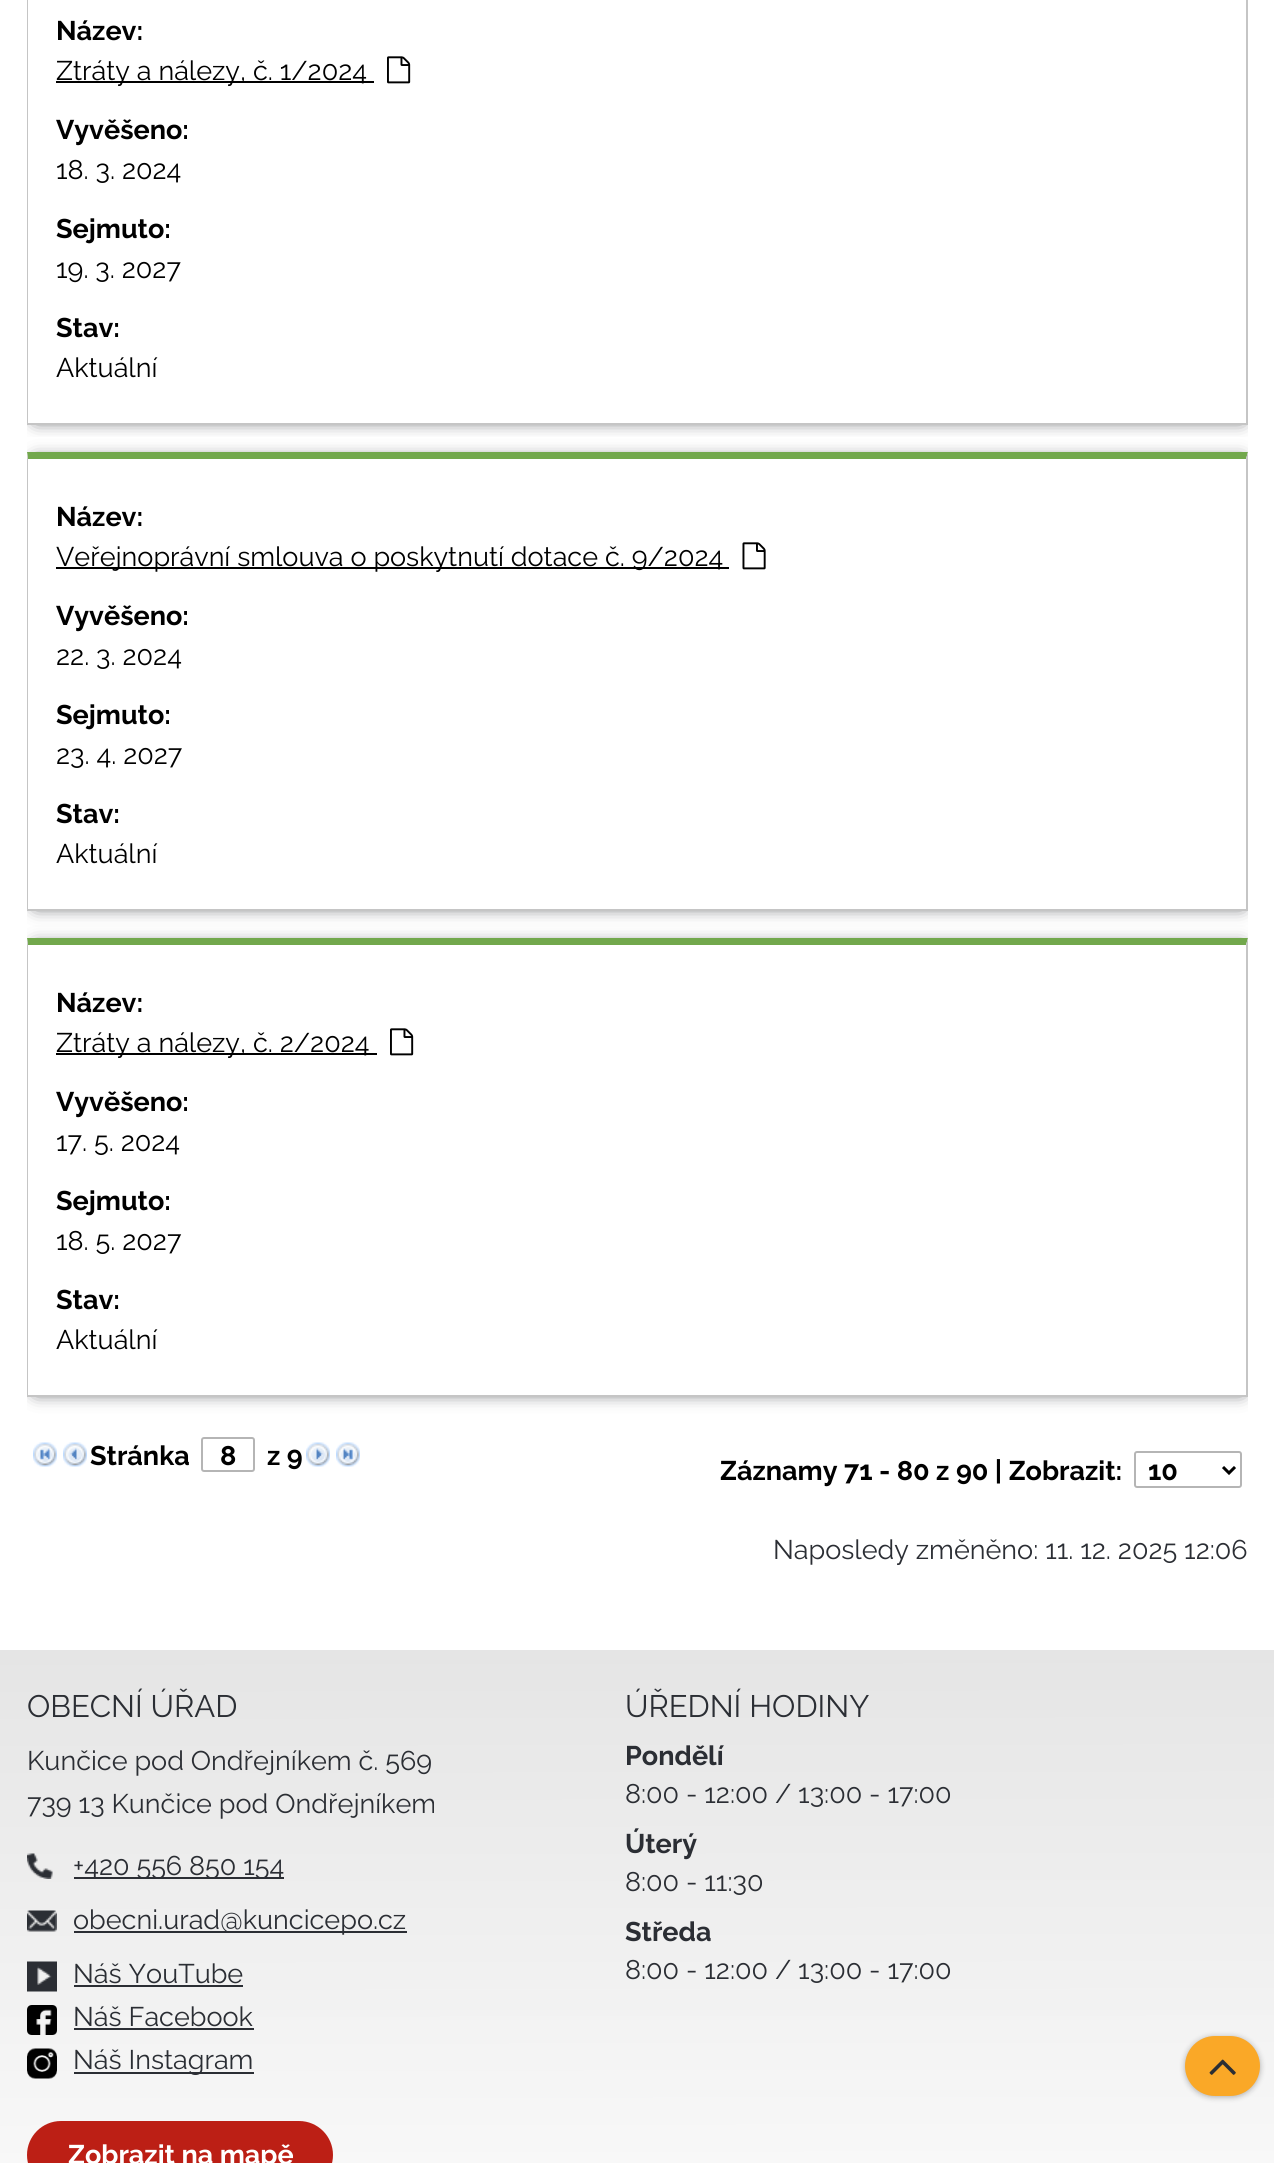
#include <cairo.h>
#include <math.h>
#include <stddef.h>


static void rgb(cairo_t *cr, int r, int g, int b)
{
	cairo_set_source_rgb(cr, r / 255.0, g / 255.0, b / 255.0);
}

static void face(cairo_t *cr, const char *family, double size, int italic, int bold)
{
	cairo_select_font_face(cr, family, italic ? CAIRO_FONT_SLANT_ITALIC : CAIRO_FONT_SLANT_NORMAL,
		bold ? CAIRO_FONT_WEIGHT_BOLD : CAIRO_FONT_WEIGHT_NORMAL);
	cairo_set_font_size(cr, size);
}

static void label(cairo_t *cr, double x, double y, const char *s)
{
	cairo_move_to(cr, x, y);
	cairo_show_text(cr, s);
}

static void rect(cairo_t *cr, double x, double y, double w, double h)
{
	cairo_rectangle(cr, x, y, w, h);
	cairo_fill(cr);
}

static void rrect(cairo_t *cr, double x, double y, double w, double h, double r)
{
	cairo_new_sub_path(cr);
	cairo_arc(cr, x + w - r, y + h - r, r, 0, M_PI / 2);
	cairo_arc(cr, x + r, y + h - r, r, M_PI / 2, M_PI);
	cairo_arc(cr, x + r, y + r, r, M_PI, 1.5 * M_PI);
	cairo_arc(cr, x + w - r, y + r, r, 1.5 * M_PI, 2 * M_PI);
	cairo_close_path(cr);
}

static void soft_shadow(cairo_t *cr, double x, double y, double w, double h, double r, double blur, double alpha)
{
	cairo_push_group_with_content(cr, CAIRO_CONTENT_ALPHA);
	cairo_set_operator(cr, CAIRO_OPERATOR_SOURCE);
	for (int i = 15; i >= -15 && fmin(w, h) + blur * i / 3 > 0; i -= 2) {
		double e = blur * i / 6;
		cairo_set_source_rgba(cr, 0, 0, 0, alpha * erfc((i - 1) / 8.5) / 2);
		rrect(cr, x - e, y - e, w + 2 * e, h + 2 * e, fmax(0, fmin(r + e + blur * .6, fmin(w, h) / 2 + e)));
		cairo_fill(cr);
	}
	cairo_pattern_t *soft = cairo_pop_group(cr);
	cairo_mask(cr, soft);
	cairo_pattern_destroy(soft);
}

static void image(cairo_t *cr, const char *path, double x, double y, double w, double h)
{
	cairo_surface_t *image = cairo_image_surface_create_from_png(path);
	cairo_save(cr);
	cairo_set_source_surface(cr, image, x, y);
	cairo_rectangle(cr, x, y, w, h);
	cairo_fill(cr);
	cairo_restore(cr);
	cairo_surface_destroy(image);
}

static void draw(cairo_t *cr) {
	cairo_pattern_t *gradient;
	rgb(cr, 255, 255, 255);
	cairo_paint(cr);
	cairo_save(cr);
	cairo_rectangle(cr, 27, 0, 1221, 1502);
	cairo_clip(cr);
	cairo_rectangle(cr, 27, 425, 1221, 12);
	cairo_clip(cr);
	rgb(cr, 43, 46, 52);
	soft_shadow(cr, 36, -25, 1206, 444, 0, 9, 1);
	cairo_restore(cr);
	rgb(cr, 197, 197, 197);
	cairo_new_path(cr);
	cairo_move_to(cr, 1248, -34);
	cairo_line_to(cr, 1248, 424);
	cairo_line_to(cr, 1246, 423);
	cairo_line_to(cr, 1246, -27);
	cairo_close_path(cr);
	cairo_fill(cr);
	rect(cr, 27, 423, 1221, 2);
	cairo_new_path(cr);
	cairo_move_to(cr, 27, 424);
	cairo_line_to(cr, 27, -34);
	cairo_line_to(cr, 28, -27);
	cairo_line_to(cr, 28, 423);
	cairo_close_path(cr);
	cairo_fill(cr);
	face(cr, "Raleway", 27, 0, 1);
	rgb(cr, 0, 0, 0);
	label(cr, 56, 40, "Název:");
	rect(cr, 56, 81, 318, 2);
	face(cr, "Raleway", 27, 0, 0);
	label(cr, 56, 80, "Ztráty a nálezy, č. 1/2024");
	image(cr, "image0.png", 387, 56, 24, 28);
	face(cr, "Raleway", 27, 0, 1);
	label(cr, 56, 139, "Vyvěšeno:");
	face(cr, "Raleway", 27, 0, 0);
	label(cr, 56, 179, "18. 3. 2024");
	face(cr, "Raleway", 27, 0, 1);
	label(cr, 56, 238, "Sejmuto:");
	face(cr, "Raleway", 27, 0, 0);
	label(cr, 56, 278, "19. 3. 2027");
	face(cr, "Raleway", 27, 0, 1);
	label(cr, 56, 337, "Stav:");
	face(cr, "Raleway", 27, 0, 0);
	label(cr, 56, 377, "Aktuální");
	cairo_save(cr);
	cairo_rectangle(cr, 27, 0, 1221, 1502);
	cairo_clip(cr);
	cairo_set_fill_rule(cr, CAIRO_FILL_RULE_EVEN_ODD);
	cairo_new_path(cr);
	cairo_move_to(cr, 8, 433);
	cairo_line_to(cr, 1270, 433);
	cairo_line_to(cr, 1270, 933);
	cairo_line_to(cr, 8, 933);
	cairo_close_path(cr);
	cairo_move_to(cr, 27, 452);
	cairo_line_to(cr, 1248, 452);
	cairo_line_to(cr, 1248, 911);
	cairo_line_to(cr, 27, 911);
	cairo_close_path(cr);
	cairo_clip(cr);
	rgb(cr, 43, 46, 52);
	soft_shadow(cr, 36, 461, 1206, 444, 0, 9, 1);
	cairo_restore(cr);
	rgb(cr, 114, 168, 76);
	cairo_new_path(cr);
	cairo_move_to(cr, 27, 452);
	cairo_line_to(cr, 1248, 452);
	cairo_line_to(cr, 1246, 459);
	cairo_line_to(cr, 28, 459);
	cairo_close_path(cr);
	cairo_fill(cr);
	rgb(cr, 197, 197, 197);
	cairo_new_path(cr);
	cairo_move_to(cr, 1248, 452);
	cairo_line_to(cr, 1248, 910);
	cairo_line_to(cr, 1246, 909);
	cairo_line_to(cr, 1246, 459);
	cairo_close_path(cr);
	cairo_fill(cr);
	rect(cr, 27, 909, 1221, 2);
	cairo_new_path(cr);
	cairo_move_to(cr, 27, 910);
	cairo_line_to(cr, 27, 452);
	cairo_line_to(cr, 28, 459);
	cairo_line_to(cr, 28, 909);
	cairo_close_path(cr);
	cairo_fill(cr);
	face(cr, "Raleway", 27, 0, 1);
	rgb(cr, 0, 0, 0);
	label(cr, 56, 526, "Název:");
	rect(cr, 56, 567, 673, 2);
	face(cr, "Raleway", 27, 0, 0);
	label(cr, 56, 566, "Veřejnoprávní smlouva o poskytnutí dotace č. 9/2024");
	image(cr, "image1.png", 742, 542, 24, 28);
	face(cr, "Raleway", 27, 0, 1);
	label(cr, 56, 625, "Vyvěšeno:");
	face(cr, "Raleway", 27, 0, 0);
	label(cr, 56, 665, "22. 3. 2024");
	face(cr, "Raleway", 27, 0, 1);
	label(cr, 56, 724, "Sejmuto:");
	face(cr, "Raleway", 27, 0, 0);
	label(cr, 56, 764, "23. 4. 2027");
	face(cr, "Raleway", 27, 0, 1);
	label(cr, 56, 823, "Stav:");
	face(cr, "Raleway", 27, 0, 0);
	label(cr, 56, 863, "Aktuální");
	cairo_save(cr);
	cairo_rectangle(cr, 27, 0, 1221, 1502);
	cairo_clip(cr);
	cairo_set_fill_rule(cr, CAIRO_FILL_RULE_EVEN_ODD);
	cairo_new_path(cr);
	cairo_move_to(cr, 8, 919);
	cairo_line_to(cr, 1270, 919);
	cairo_line_to(cr, 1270, 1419);
	cairo_line_to(cr, 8, 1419);
	cairo_close_path(cr);
	cairo_move_to(cr, 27, 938);
	cairo_line_to(cr, 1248, 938);
	cairo_line_to(cr, 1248, 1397);
	cairo_line_to(cr, 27, 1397);
	cairo_close_path(cr);
	cairo_clip(cr);
	rgb(cr, 43, 46, 52);
	soft_shadow(cr, 36, 947, 1206, 444, 0, 9, 1);
	cairo_restore(cr);
	rgb(cr, 114, 168, 76);
	cairo_new_path(cr);
	cairo_move_to(cr, 27, 938);
	cairo_line_to(cr, 1248, 938);
	cairo_line_to(cr, 1246, 945);
	cairo_line_to(cr, 28, 945);
	cairo_close_path(cr);
	cairo_fill(cr);
	rgb(cr, 197, 197, 197);
	cairo_new_path(cr);
	cairo_move_to(cr, 1248, 938);
	cairo_line_to(cr, 1248, 1396);
	cairo_line_to(cr, 1246, 1395);
	cairo_line_to(cr, 1246, 945);
	cairo_close_path(cr);
	cairo_fill(cr);
	rect(cr, 27, 1395, 1221, 2);
	cairo_new_path(cr);
	cairo_move_to(cr, 27, 1396);
	cairo_line_to(cr, 27, 938);
	cairo_line_to(cr, 28, 945);
	cairo_line_to(cr, 28, 1395);
	cairo_close_path(cr);
	cairo_fill(cr);
	face(cr, "Raleway", 27, 0, 1);
	rgb(cr, 0, 0, 0);
	label(cr, 56, 1012, "Název:");
	rect(cr, 56, 1053, 321, 2);
	face(cr, "Raleway", 27, 0, 0);
	label(cr, 56, 1052, "Ztráty a nálezy, č. 2/2024");
	image(cr, "image0.png", 390, 1028, 24, 28);
	face(cr, "Raleway", 27, 0, 1);
	label(cr, 56, 1111, "Vyvěšeno:");
	face(cr, "Raleway", 27, 0, 0);
	label(cr, 56, 1151, "17. 5. 2024");
	face(cr, "Raleway", 27, 0, 1);
	label(cr, 56, 1210, "Sejmuto:");
	face(cr, "Raleway", 27, 0, 0);
	label(cr, 56, 1250, "18. 5. 2027");
	face(cr, "Raleway", 27, 0, 1);
	label(cr, 56, 1309, "Stav:");
	face(cr, "Raleway", 27, 0, 0);
	label(cr, 56, 1349, "Aktuální");
	image(cr, "image2.png", 33, 1442, 24, 25);
	image(cr, "image3.png", 63, 1442, 24, 25);
	face(cr, "Raleway", 27, 0, 1);
	label(cr, 90, 1465, "Stránka");
	rrect(cr, 202, 1438, 52, 33, 2);
	rgb(cr, 181, 181, 181);
	cairo_stroke(cr);
	rgb(cr, 0, 0, 0);
	label(cr, 220, 1465, "8");
	label(cr, 267, 1465, "z 9");
	image(cr, "image4.png", 306, 1442, 24, 25);
	image(cr, "image5.png", 336, 1442, 24, 25);
	label(cr, 720, 1480, "Záznamy 71 - 80 z 90 | Zobrazit:");
	rrect(cr, 1135, 1452, 106, 35, 2);
	rgb(cr, 181, 181, 181);
	cairo_stroke(cr);
	cairo_new_path(cr);
	cairo_move_to(cr, 1223, 1467);
	cairo_line_to(cr, 1229, 1473);
	cairo_line_to(cr, 1235, 1467);
	rgb(cr, 0, 0, 0);
	cairo_set_line_width(cr, 3);
	cairo_stroke(cr);
	label(cr, 1148, 1480, "10");
	face(cr, "Raleway", 27, 0, 0);
	rgb(cr, 43, 46, 52);
	label(cr, 773, 1559, "Naposledy změněno: 11. 12. 2025 12:06");
	gradient = cairo_pattern_create_linear(637, 1650, 638, 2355);
	cairo_pattern_add_color_stop_rgba(gradient, 0, 0.898, 0.898, 0.898, 1);
	cairo_pattern_add_color_stop_rgba(gradient, 1, 1, 1, 1, 1);
	cairo_set_source(cr, gradient);
	cairo_pattern_destroy(gradient);
	rect(cr, 0, 1650, 1274, 513);
	rgb(cr, 0, 0, 0);
	soft_shadow(cr, 1185, 2037, 75, 60, 30, 3, 0.3);
	rgb(cr, 250, 168, 39);
	rrect(cr, 1185, 2036, 75, 60, 30);
	cairo_fill(cr);
	image(cr, "image6.png", 1209, 2059, 27, 16);
	face(cr, "Raleway", 31, 0, 0);
	rgb(cr, 43, 46, 52);
	label(cr, 27, 1717, "OBECNÍ ÚŘAD");
	face(cr, "Raleway", 27, 0, 0);
	label(cr, 27, 1770, "Kunčice pod Ondřejníkem č. 569");
	label(cr, 27, 1813, "739 13 Kunčice pod Ondřejníkem");
	image(cr, "image7.png", 27, 1853, 26, 26);
	rect(cr, 74, 1877, 210, 2);
	label(cr, 73, 1875, "+420 556 850 154");
	image(cr, "image8.png", 27, 1910, 30, 22);
	rect(cr, 74, 1931, 333, 2);
	label(cr, 73, 1929, "obecni.urad@kuncicepo.cz");
	image(cr, "image9.png", 27, 1961, 30, 31);
	label(cr, 73, 1983, "Náš YouTube");
	rect(cr, 74, 1985, 169, 2);
	image(cr, "image10.png", 27, 2005, 30, 30);
	label(cr, 73, 2026, "Náš Facebook");
	rect(cr, 74, 2028, 180, 2);
	image(cr, "image11.png", 27, 2048, 30, 31);
	rect(cr, 74, 2072, 180, 2);
	label(cr, 73, 2069, "Náš Instagram");
	face(cr, "Raleway", 31, 0, 0);
	label(cr, 625, 1717, "ÚŘEDNÍ HODINY");
	face(cr, "Raleway", 27, 0, 1);
	label(cr, 625, 1765, "Pondělí");
	face(cr, "Raleway", 27, 0, 0);
	label(cr, 625, 1803, "8:00 - 12:00 / 13:00 - 17:00");
	face(cr, "Raleway", 27, 0, 1);
	label(cr, 625, 1853, "Úterý");
	face(cr, "Raleway", 27, 0, 0);
	label(cr, 625, 1891, "8:00 - 11:30");
	face(cr, "Raleway", 27, 0, 1);
	label(cr, 625, 1941, "Středa");
	face(cr, "Raleway", 27, 0, 0);
	label(cr, 625, 1979, "8:00 - 12:00 / 13:00 - 17:00");
	rgb(cr, 188, 31, 21);
	rrect(cr, 27, 2121, 306, 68, 34);
	cairo_fill(cr);
	face(cr, "Raleway", 27, 0, 1);
	rgb(cr, 255, 255, 255);
	label(cr, 68, 2164, "Zobrazit na mapě");
}

int main(void) {
	cairo_surface_t *surface = cairo_image_surface_create(CAIRO_FORMAT_RGB24, 1274, 2163);
	cairo_t *cr = cairo_create(surface);
	cairo_font_options_t *options = cairo_font_options_create();
	cairo_font_options_set_hint_metrics(options, CAIRO_HINT_METRICS_OFF);
	cairo_font_options_set_hint_style(options, CAIRO_HINT_STYLE_NONE);
	cairo_set_font_options(cr, options);
	cairo_set_miter_limit(cr, 4);
	draw(cr);
	cairo_surface_write_to_png(surface, "render.png");
	cairo_font_options_destroy(options);
	cairo_destroy(cr);
	cairo_surface_destroy(surface);
	return 0;
}
